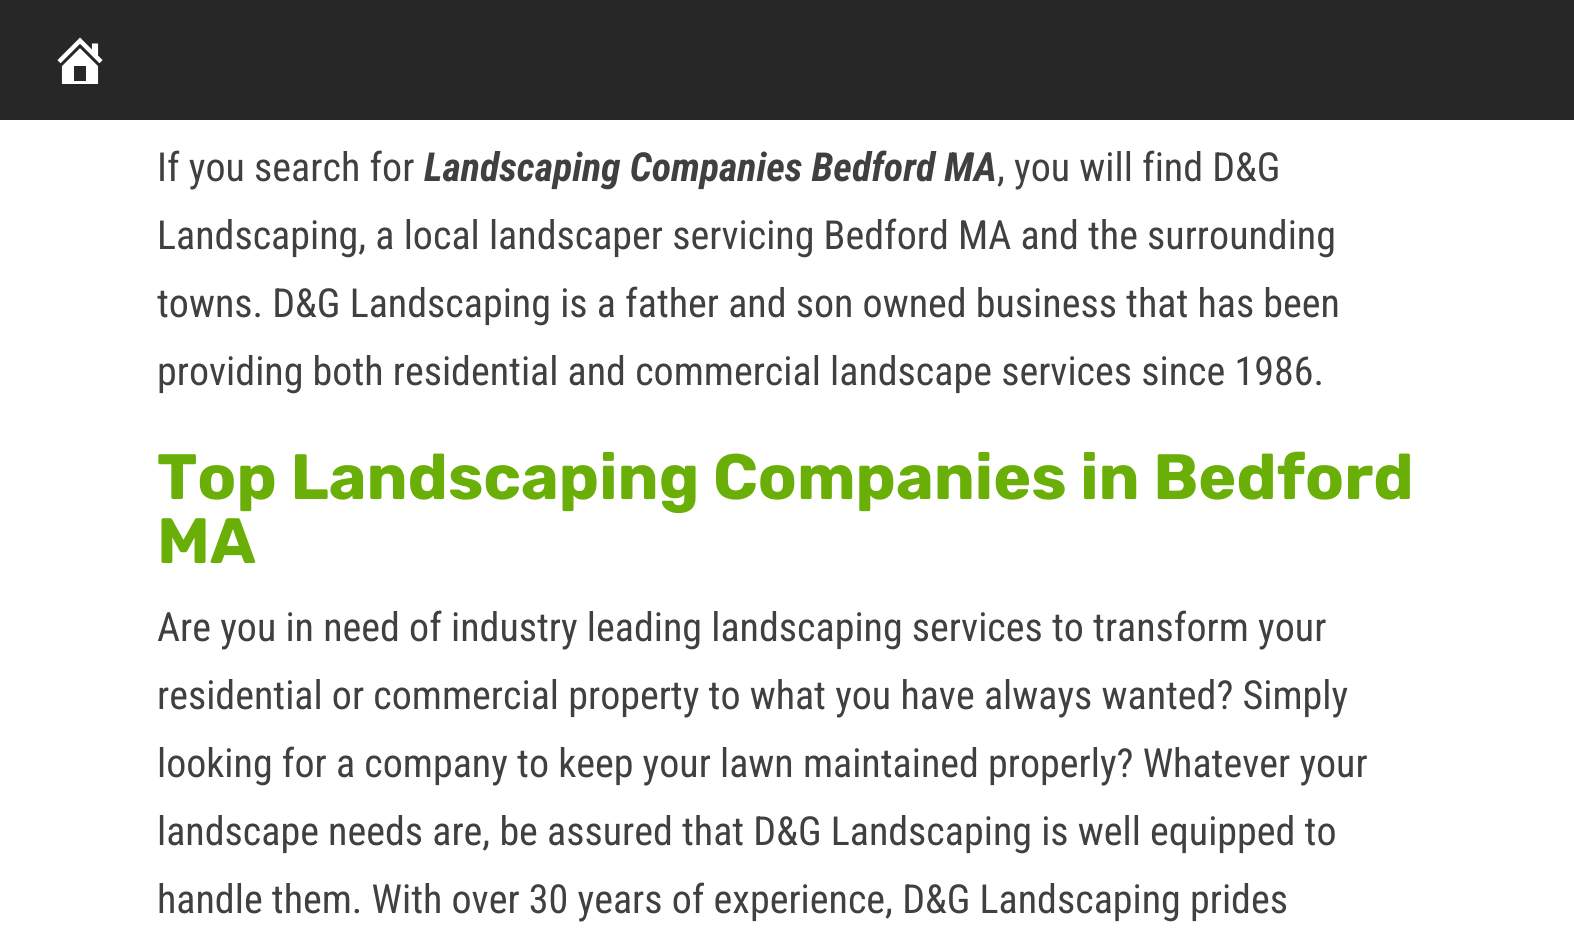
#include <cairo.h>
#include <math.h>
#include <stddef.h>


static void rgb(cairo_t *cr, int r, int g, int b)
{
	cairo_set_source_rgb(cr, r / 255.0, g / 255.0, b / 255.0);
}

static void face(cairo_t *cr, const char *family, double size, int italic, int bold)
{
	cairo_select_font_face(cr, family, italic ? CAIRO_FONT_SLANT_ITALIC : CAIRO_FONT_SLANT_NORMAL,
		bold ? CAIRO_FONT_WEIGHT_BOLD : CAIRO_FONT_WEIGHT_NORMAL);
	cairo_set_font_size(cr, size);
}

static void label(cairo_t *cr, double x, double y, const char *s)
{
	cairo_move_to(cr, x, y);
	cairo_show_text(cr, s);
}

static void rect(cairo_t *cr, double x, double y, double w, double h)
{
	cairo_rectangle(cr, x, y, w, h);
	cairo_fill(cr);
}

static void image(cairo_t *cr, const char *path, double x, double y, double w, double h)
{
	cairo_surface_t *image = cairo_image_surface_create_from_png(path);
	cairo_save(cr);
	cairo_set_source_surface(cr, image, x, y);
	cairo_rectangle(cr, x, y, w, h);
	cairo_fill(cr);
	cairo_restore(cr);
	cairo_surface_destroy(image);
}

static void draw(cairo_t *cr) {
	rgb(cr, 255, 255, 255);
	cairo_paint(cr);
	rgb(cr, 39, 39, 39);
	rect(cr, 0, 0, 1574, 120);
	image(cr, "image0.png", 57, 37, 46, 47);
	face(cr, "Roboto Condensed", 40, 0, 0);
	rgb(cr, 64, 64, 65);
	label(cr, 157, 181, "If you search for");
	face(cr, "Roboto Condensed", 40, 1, 1);
	label(cr, 424, 181, "Landscaping Companies Bedford MA");
	face(cr, "Roboto Condensed", 40, 0, 0);
	label(cr, 997, 181, ", you will find D&G");
	label(cr, 157, 249, "Landscaping, a local landscaper servicing Bedford MA and the surrounding");
	label(cr, 157, 317, "towns. D&G Landscaping is a father and son owned business that has been");
	label(cr, 157, 385, "providing both residential and commercial landscape services since 1986.");
	face(cr, "Rubik Light", 64, 0, 0);
	rgb(cr, 106, 174, 8);
	label(cr, 157, 499, "Top Landscaping Companies in Bedford");
	label(cr, 157, 563, "MA");
	face(cr, "Roboto Condensed", 40, 0, 0);
	rgb(cr, 64, 64, 65);
	label(cr, 157, 641, "Are you in need of industry leading landscaping services to transform your");
	label(cr, 157, 709, "residential or commercial property to what you have always wanted? Simply");
	label(cr, 157, 777, "looking for a company to keep your lawn maintained properly? Whatever your");
	label(cr, 157, 845, "landscape needs are, be assured that D&G Landscaping is well equipped to");
	label(cr, 157, 913, "handle them. With over 30 years of experience, D&G Landscaping prides");
}

int main(void) {
	cairo_surface_t *surface = cairo_image_surface_create(CAIRO_FORMAT_RGB24, 1574, 949);
	cairo_t *cr = cairo_create(surface);
	cairo_font_options_t *options = cairo_font_options_create();
	cairo_font_options_set_hint_metrics(options, CAIRO_HINT_METRICS_OFF);
	cairo_font_options_set_hint_style(options, CAIRO_HINT_STYLE_NONE);
	cairo_set_font_options(cr, options);
	cairo_set_miter_limit(cr, 4);
	draw(cr);
	cairo_surface_write_to_png(surface, "render.png");
	cairo_font_options_destroy(options);
	cairo_destroy(cr);
	cairo_surface_destroy(surface);
	return 0;
}
